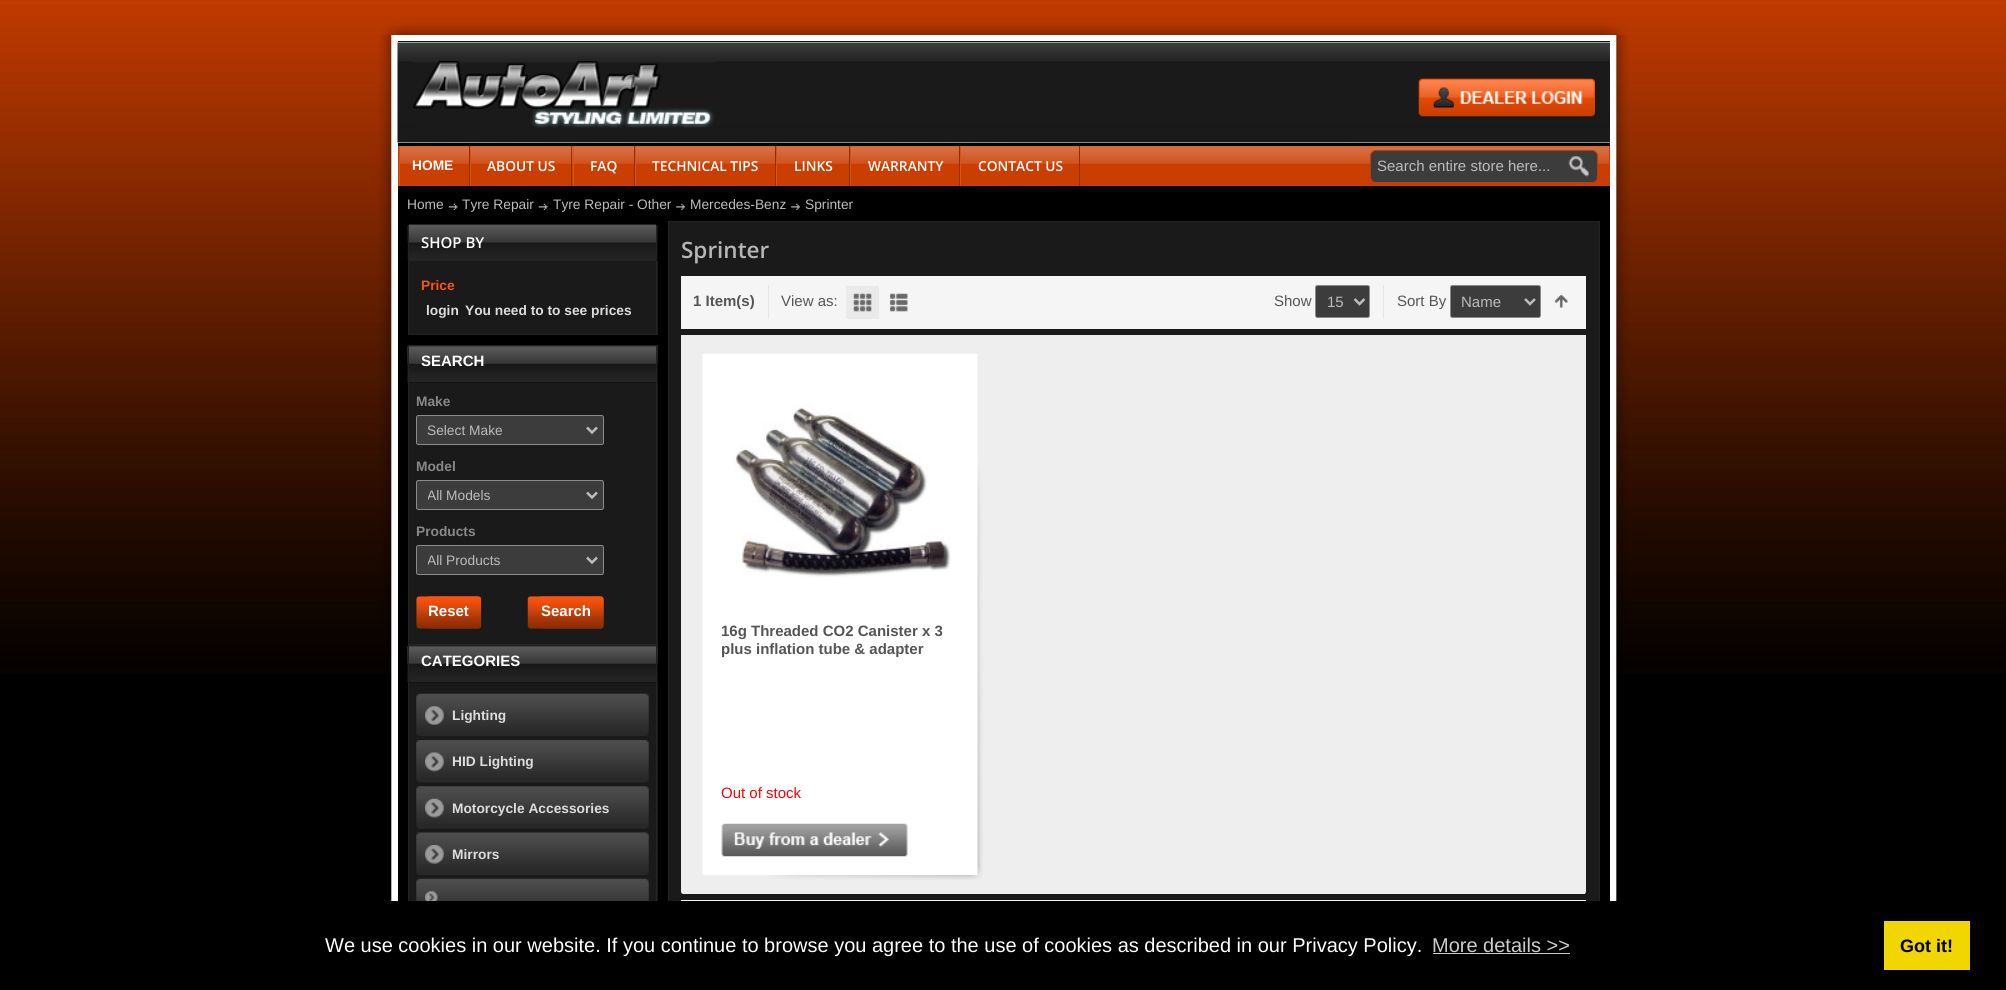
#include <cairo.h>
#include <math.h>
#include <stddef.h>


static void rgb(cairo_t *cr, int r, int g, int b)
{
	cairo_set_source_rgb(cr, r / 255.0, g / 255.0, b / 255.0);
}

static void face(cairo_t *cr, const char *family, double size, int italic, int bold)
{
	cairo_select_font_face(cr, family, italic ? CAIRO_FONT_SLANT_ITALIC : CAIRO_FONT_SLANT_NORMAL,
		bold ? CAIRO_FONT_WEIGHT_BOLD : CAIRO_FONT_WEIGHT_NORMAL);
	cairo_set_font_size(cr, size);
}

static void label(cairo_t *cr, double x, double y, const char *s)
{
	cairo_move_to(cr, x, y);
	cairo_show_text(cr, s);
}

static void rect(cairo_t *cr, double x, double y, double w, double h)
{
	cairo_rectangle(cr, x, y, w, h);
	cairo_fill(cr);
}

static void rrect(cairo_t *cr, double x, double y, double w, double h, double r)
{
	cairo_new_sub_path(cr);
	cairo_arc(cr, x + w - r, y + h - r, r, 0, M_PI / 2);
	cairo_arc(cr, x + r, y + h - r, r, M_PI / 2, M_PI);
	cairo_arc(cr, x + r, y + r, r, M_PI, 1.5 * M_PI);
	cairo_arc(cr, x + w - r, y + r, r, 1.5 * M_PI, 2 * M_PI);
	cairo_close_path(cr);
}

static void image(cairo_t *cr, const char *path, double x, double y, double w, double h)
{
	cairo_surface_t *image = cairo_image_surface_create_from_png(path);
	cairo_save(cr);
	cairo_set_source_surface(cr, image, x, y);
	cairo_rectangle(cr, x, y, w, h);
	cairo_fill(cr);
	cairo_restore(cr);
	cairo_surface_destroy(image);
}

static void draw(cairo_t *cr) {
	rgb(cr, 0, 0, 0);
	cairo_paint(cr);
	image(cr, "image0.png", 0, 0, 2006, 674);
	image(cr, "image1.png", 381, 23, 1245, 12);
	image(cr, "image2.png", 379, 35, 1250, 866);
	image(cr, "image3.png", 397, 42, 1213, 101);
	rgb(cr, 16, 16, 16);
	rect(cr, 398, 41, 1212, 1);
	rgb(cr, 200, 61, 1);
	rect(cr, 1609, 145, 1, 41);
	rect(cr, 398, 145, 1, 41);
	rgb(cr, 0, 0, 0);
	rect(cr, 398, 143, 1212, 3);
	image(cr, "image4.png", 412, 61, 303, 67);
	image(cr, "image5.png", 1418, 78, 177, 39);
	rgb(cr, 202, 62, 1);
	rect(cr, 400, 146, 1209, 40);
	image(cr, "image6.png", 400, 146, 1209, 18);
	rgb(cr, 145, 44, 0);
	rect(cr, 469, 146, 1, 40);
	rgb(cr, 220, 83, 23);
	rect(cr, 399, 146, 1, 40);
	face(cr, "Liberation Sans", 13.75, 0, 1);
	rgb(cr, 255, 255, 255);
	label(cr, 412, 170, "HOME");
	rgb(cr, 145, 44, 0);
	rect(cr, 571, 146, 1, 40);
	rgb(cr, 220, 83, 23);
	rect(cr, 470, 146, 1, 40);
	face(cr, "Open Sans SemiBold", 13.75, 0, 0);
	rgb(cr, 255, 255, 255);
	label(cr, 487, 171, "ABOUT US");
	rgb(cr, 145, 44, 0);
	rect(cr, 634, 146, 1, 40);
	rgb(cr, 220, 83, 23);
	rect(cr, 573, 146, 1, 40);
	rgb(cr, 255, 255, 255);
	label(cr, 590, 171, "FAQ");
	rgb(cr, 145, 44, 0);
	rect(cr, 775, 146, 1, 40);
	rgb(cr, 220, 83, 23);
	rect(cr, 635, 146, 1, 40);
	rgb(cr, 255, 255, 255);
	label(cr, 652, 171, "TECHNICAL TIPS");
	rgb(cr, 145, 44, 0);
	rect(cr, 849, 146, 1, 40);
	rgb(cr, 220, 83, 23);
	rect(cr, 776, 146, 1, 40);
	rgb(cr, 255, 255, 255);
	label(cr, 794, 171, "LINKS");
	rgb(cr, 145, 44, 0);
	rect(cr, 959, 146, 1, 40);
	rgb(cr, 220, 83, 23);
	rect(cr, 850, 146, 1, 40);
	rgb(cr, 255, 255, 255);
	label(cr, 868, 171, "WARRANTY");
	rgb(cr, 145, 44, 0);
	rect(cr, 1079, 146, 1, 40);
	rgb(cr, 220, 83, 23);
	rect(cr, 960, 146, 1, 40);
	rgb(cr, 255, 255, 255);
	label(cr, 978, 171, "CONTACT US");
	rgb(cr, 60, 60, 60);
	rrect(cr, 1370.5, 150.5, 227, 32, 5.5);
	cairo_fill_preserve(cr);
	rgb(cr, 177, 66, 19);
	cairo_set_line_width(cr, 1);
	cairo_stroke(cr);
	face(cr, "Liberation Sans", 15, 0, 0);
	rgb(cr, 188, 188, 188);
	label(cr, 1377, 171, "Search entire store here...");
	image(cr, "image7.png", 1568, 156, 21, 21);
	rgb(cr, 0, 0, 0);
	rect(cr, 398, 186, 1212, 715);
	face(cr, "Liberation Sans", 13.75, 0, 0);
	rgb(cr, 188, 188, 188);
	label(cr, 407, 209, "Home");
	image(cr, "image8.png", 448, 203, 10, 7);
	label(cr, 462, 209, "Tyre Repair");
	image(cr, "image8.png", 538, 203, 10, 7);
	label(cr, 553, 209, "Tyre Repair - Other");
	image(cr, "image9.png", 676, 203, 9, 7);
	label(cr, 690, 209, "Mercedes-Benz");
	image(cr, "image9.png", 791, 203, 9, 7);
	label(cr, 805, 209, "Sprinter");
	image(cr, "image10.png", 407, 225, 251, 36);
	rgb(cr, 35, 35, 35);
	rect(cr, 409, 224, 247, 1);
	rect(cr, 656, 225, 1, 35);
	rect(cr, 408, 225, 1, 35);
	face(cr, "Open Sans SemiBold", 15, 0, 0);
	rgb(cr, 255, 255, 255);
	label(cr, 421, 248, "SHOP BY");
	rgb(cr, 25, 26, 25);
	rect(cr, 409, 261, 249, 73);
	rgb(cr, 35, 35, 35);
	rect(cr, 656, 261, 1, 74);
	rect(cr, 408, 334, 250, 1);
	rect(cr, 408, 261, 1, 74);
	face(cr, "Liberation Sans", 13.75, 0, 1);
	rgb(cr, 251, 84, 14);
	label(cr, 421, 290, "Price");
	rgb(cr, 221, 221, 221);
	label(cr, 426, 315, "login");
	label(cr, 465, 315, "You need to to see prices");
	image(cr, "image11.png", 407, 346, 251, 37);
	rgb(cr, 35, 35, 35);
	rect(cr, 408, 345, 250, 1);
	rect(cr, 656, 345, 1, 38);
	rect(cr, 408, 345, 1, 38);
	face(cr, "Liberation Sans", 15, 0, 1);
	rgb(cr, 255, 255, 255);
	label(cr, 421, 366, "SEARCH");
	rgb(cr, 25, 26, 25);
	rect(cr, 409, 383, 249, 261);
	rgb(cr, 35, 35, 35);
	rect(cr, 656, 383, 1, 262);
	rect(cr, 408, 644, 250, 2);
	rect(cr, 408, 383, 1, 262);
	face(cr, "Liberation Sans", 13.75, 0, 1);
	rgb(cr, 136, 136, 136);
	label(cr, 416, 406, "Make");
	rgb(cr, 60, 60, 60);
	rrect(cr, 416.5, 415.5, 187, 29, 2);
	cairo_fill_preserve(cr);
	rgb(cr, 138, 139, 138);
	cairo_stroke(cr);
	cairo_new_path(cr);
	cairo_move_to(cr, 587, 427.5);
	cairo_line_to(cr, 592, 432.5);
	cairo_line_to(cr, 597, 427.5);
	rgb(cr, 188, 188, 188);
	cairo_set_line_width(cr, 2.5);
	cairo_stroke(cr);
	face(cr, "Liberation Sans", 13.75, 0, 0);
	label(cr, 427, 435, "Select Make");
	face(cr, "Liberation Sans", 13.75, 0, 1);
	rgb(cr, 136, 136, 136);
	label(cr, 416, 471, "Model");
	rgb(cr, 60, 60, 60);
	rrect(cr, 416.5, 480.5, 187, 29, 2);
	cairo_fill_preserve(cr);
	rgb(cr, 138, 139, 138);
	cairo_set_line_width(cr, 1);
	cairo_stroke(cr);
	cairo_new_path(cr);
	cairo_move_to(cr, 587, 492.5);
	cairo_line_to(cr, 592, 497.5);
	cairo_line_to(cr, 597, 492.5);
	rgb(cr, 188, 188, 188);
	cairo_set_line_width(cr, 2.5);
	cairo_stroke(cr);
	cairo_save(cr);
	cairo_rectangle(cr, 428, 486, 150, 18);
	cairo_clip(cr);
	face(cr, "Liberation Sans", 13.75, 0, 0);
	label(cr, 427, 500, "All Models");
	cairo_restore(cr);
	rgb(cr, 136, 136, 136);
	label(cr, 416, 536, "Products");
	rgb(cr, 60, 60, 60);
	rrect(cr, 416.5, 545.5, 187, 29, 2);
	cairo_fill_preserve(cr);
	rgb(cr, 138, 139, 138);
	cairo_set_line_width(cr, 1);
	cairo_stroke(cr);
	cairo_new_path(cr);
	cairo_move_to(cr, 587, 557.5);
	cairo_line_to(cr, 592, 562.5);
	cairo_line_to(cr, 597, 557.5);
	rgb(cr, 188, 188, 188);
	cairo_set_line_width(cr, 2.5);
	cairo_stroke(cr);
	cairo_save(cr);
	cairo_rectangle(cr, 428, 551, 150, 18);
	cairo_clip(cr);
	face(cr, "Liberation Sans", 13.75, 0, 0);
	label(cr, 427, 565, "All Products");
	cairo_restore(cr);
	image(cr, "image12.png", 416, 596, 66, 33);
	image(cr, "image13.png", 427, 596, 55, 33);
	face(cr, "Liberation Sans", 15, 0, 1);
	rgb(cr, 255, 255, 255);
	label(cr, 428, 616, "Reset");
	image(cr, "image14.png", 527, 596, 77, 33);
	image(cr, "image15.png", 539, 596, 65, 33);
	label(cr, 541, 616, "Search");
	image(cr, "image11.png", 407, 646, 251, 37);
	rgb(cr, 35, 35, 35);
	rect(cr, 656, 645, 1, 38);
	rect(cr, 408, 645, 1, 256);
	rgb(cr, 255, 255, 255);
	label(cr, 421, 666, "CATEGORIES");
	rgb(cr, 25, 26, 25);
	rect(cr, 409, 683, 249, 218);
	rgb(cr, 35, 35, 35);
	rect(cr, 656, 683, 1, 218);
	image(cr, "image16.png", 416, 693, 233, 43);
	image(cr, "image17.png", 425, 706, 19, 19);
	face(cr, "Liberation Sans", 13.75, 0, 1);
	rgb(cr, 221, 221, 221);
	label(cr, 452, 720, "Lighting");
	image(cr, "image18.png", 416, 740, 233, 43);
	image(cr, "image19.png", 425, 752, 19, 20);
	label(cr, 452, 766, "HID Lighting");
	image(cr, "image20.png", 416, 786, 233, 43);
	image(cr, "image21.png", 425, 798, 19, 20);
	label(cr, 452, 813, "Motorcycle Accessories");
	image(cr, "image22.png", 416, 832, 233, 43);
	image(cr, "image23.png", 425, 845, 19, 19);
	label(cr, 452, 859, "Mirrors");
	image(cr, "image24.png", 416, 878, 233, 23);
	image(cr, "image25.png", 425, 891, 13, 10);
	rgb(cr, 25, 26, 25);
	rect(cr, 669, 222, 930, 679);
	cairo_rectangle(cr, 668.5, 221.5, 931, 757);
	rgb(cr, 35, 35, 35);
	cairo_set_line_width(cr, 1);
	cairo_stroke(cr);
	face(cr, "Open Sans SemiBold", 22.5, 0, 0);
	rgb(cr, 182, 182, 181);
	label(cr, 681, 258, "Sprinter");
	rgb(cr, 245, 245, 245);
	rect(cr, 681, 276, 905, 53);
	rgb(cr, 229, 229, 229);
	rect(cr, 768, 285, 1, 34);
	face(cr, "Liberation Sans", 15, 0, 1);
	rgb(cr, 85, 85, 85);
	label(cr, 693, 306, "1 Item(s)");
	face(cr, "Liberation Sans", 15, 0, 0);
	label(cr, 781, 306, "View as:");
	rgb(cr, 234, 234, 234);
	rect(cr, 846, 286, 33, 33);
	image(cr, "image26.png", 853, 293, 19, 19);
	image(cr, "image27.png", 889, 293, 19, 19);
	rgb(cr, 229, 229, 229);
	rect(cr, 1383, 285, 1, 34);
	rgb(cr, 85, 85, 85);
	label(cr, 1274, 306, "Show");
	rgb(cr, 60, 60, 60);
	rrect(cr, 1315.5, 285.5, 54, 32, 2);
	cairo_fill_preserve(cr);
	rgb(cr, 138, 139, 138);
	cairo_stroke(cr);
	cairo_new_path(cr);
	cairo_move_to(cr, 1354.5, 299);
	cairo_line_to(cr, 1359.5, 304);
	cairo_line_to(cr, 1364.5, 299);
	rgb(cr, 188, 188, 188);
	cairo_set_line_width(cr, 2.5);
	cairo_stroke(cr);
	label(cr, 1327, 307, "15");
	rgb(cr, 85, 85, 85);
	label(cr, 1397, 306, "Sort By");
	rgb(cr, 60, 60, 60);
	rrect(cr, 1450.5, 285.5, 90, 32, 2);
	cairo_fill_preserve(cr);
	rgb(cr, 138, 139, 138);
	cairo_set_line_width(cr, 1);
	cairo_stroke(cr);
	cairo_new_path(cr);
	cairo_move_to(cr, 1525, 299);
	cairo_line_to(cr, 1530, 304);
	cairo_line_to(cr, 1535, 299);
	rgb(cr, 188, 188, 188);
	cairo_set_line_width(cr, 2.5);
	cairo_stroke(cr);
	label(cr, 1461, 307, "Name");
	image(cr, "image28.png", 1554, 294, 14, 14);
	rgb(cr, 238, 238, 238);
	cairo_new_path(cr);
	cairo_move_to(cr, 681, 335);
	cairo_line_to(cr, 1586, 335);
	cairo_line_to(cr, 1586, 891.5);
	cairo_curve_to(cr, 1586, 893, 1585, 894, 1583.5, 894);
	cairo_line_to(cr, 683.5, 894);
	cairo_curve_to(cr, 682, 894, 681, 893, 681, 891.5);
	cairo_close_path(cr);
	cairo_fill(cr);
	rect(cr, 683, 893, 902, 1);
	image(cr, "image29.png", 702, 353, 281, 527);
	image(cr, "image30.png", 733, 404, 218, 173);
	face(cr, "Liberation Sans", 15, 0, 1);
	rgb(cr, 85, 85, 85);
	label(cr, 721, 636, "16g Threaded CO2 Canister x 3");
	label(cr, 721, 654, "plus inflation tube & adapter");
	face(cr, "Liberation Sans", 15, 0, 0);
	rgb(cr, 255, 0, 0);
	label(cr, 721, 798, "Out of stock");
	image(cr, "image31.png", 721, 823, 187, 34);
	rgb(cr, 245, 245, 245);
	rect(cr, 681, 900, 905, 1);
	rgb(cr, 0, 0, 0);
	rect(cr, 668, 901, 932, 78);
	face(cr, "Liberation Sans", 20, 0, 0);
	rgb(cr, 255, 255, 255);
	label(cr, 325, 952, "We use cookies in our website. If you continue to browse you agree to the use of cookies as described in our Privacy Policy.");
	rgb(cr, 204, 204, 204);
	label(cr, 1432, 952, "More details >>");
	rect(cr, 1433, 953, 137, 1);
	rgb(cr, 241, 214, 0);
	rect(cr, 1884, 921, 86, 49);
	face(cr, "Liberation Sans", 18, 0, 1);
	rgb(cr, 0, 0, 0);
	label(cr, 1900, 952, "Got it!");
}

int main(void) {
	cairo_surface_t *surface = cairo_image_surface_create(CAIRO_FORMAT_RGB24, 2006, 990);
	cairo_t *cr = cairo_create(surface);
	cairo_font_options_t *options = cairo_font_options_create();
	cairo_font_options_set_hint_metrics(options, CAIRO_HINT_METRICS_OFF);
	cairo_font_options_set_hint_style(options, CAIRO_HINT_STYLE_NONE);
	cairo_set_font_options(cr, options);
	cairo_set_miter_limit(cr, 4);
	draw(cr);
	cairo_surface_write_to_png(surface, "render.png");
	cairo_font_options_destroy(options);
	cairo_destroy(cr);
	cairo_surface_destroy(surface);
	return 0;
}
